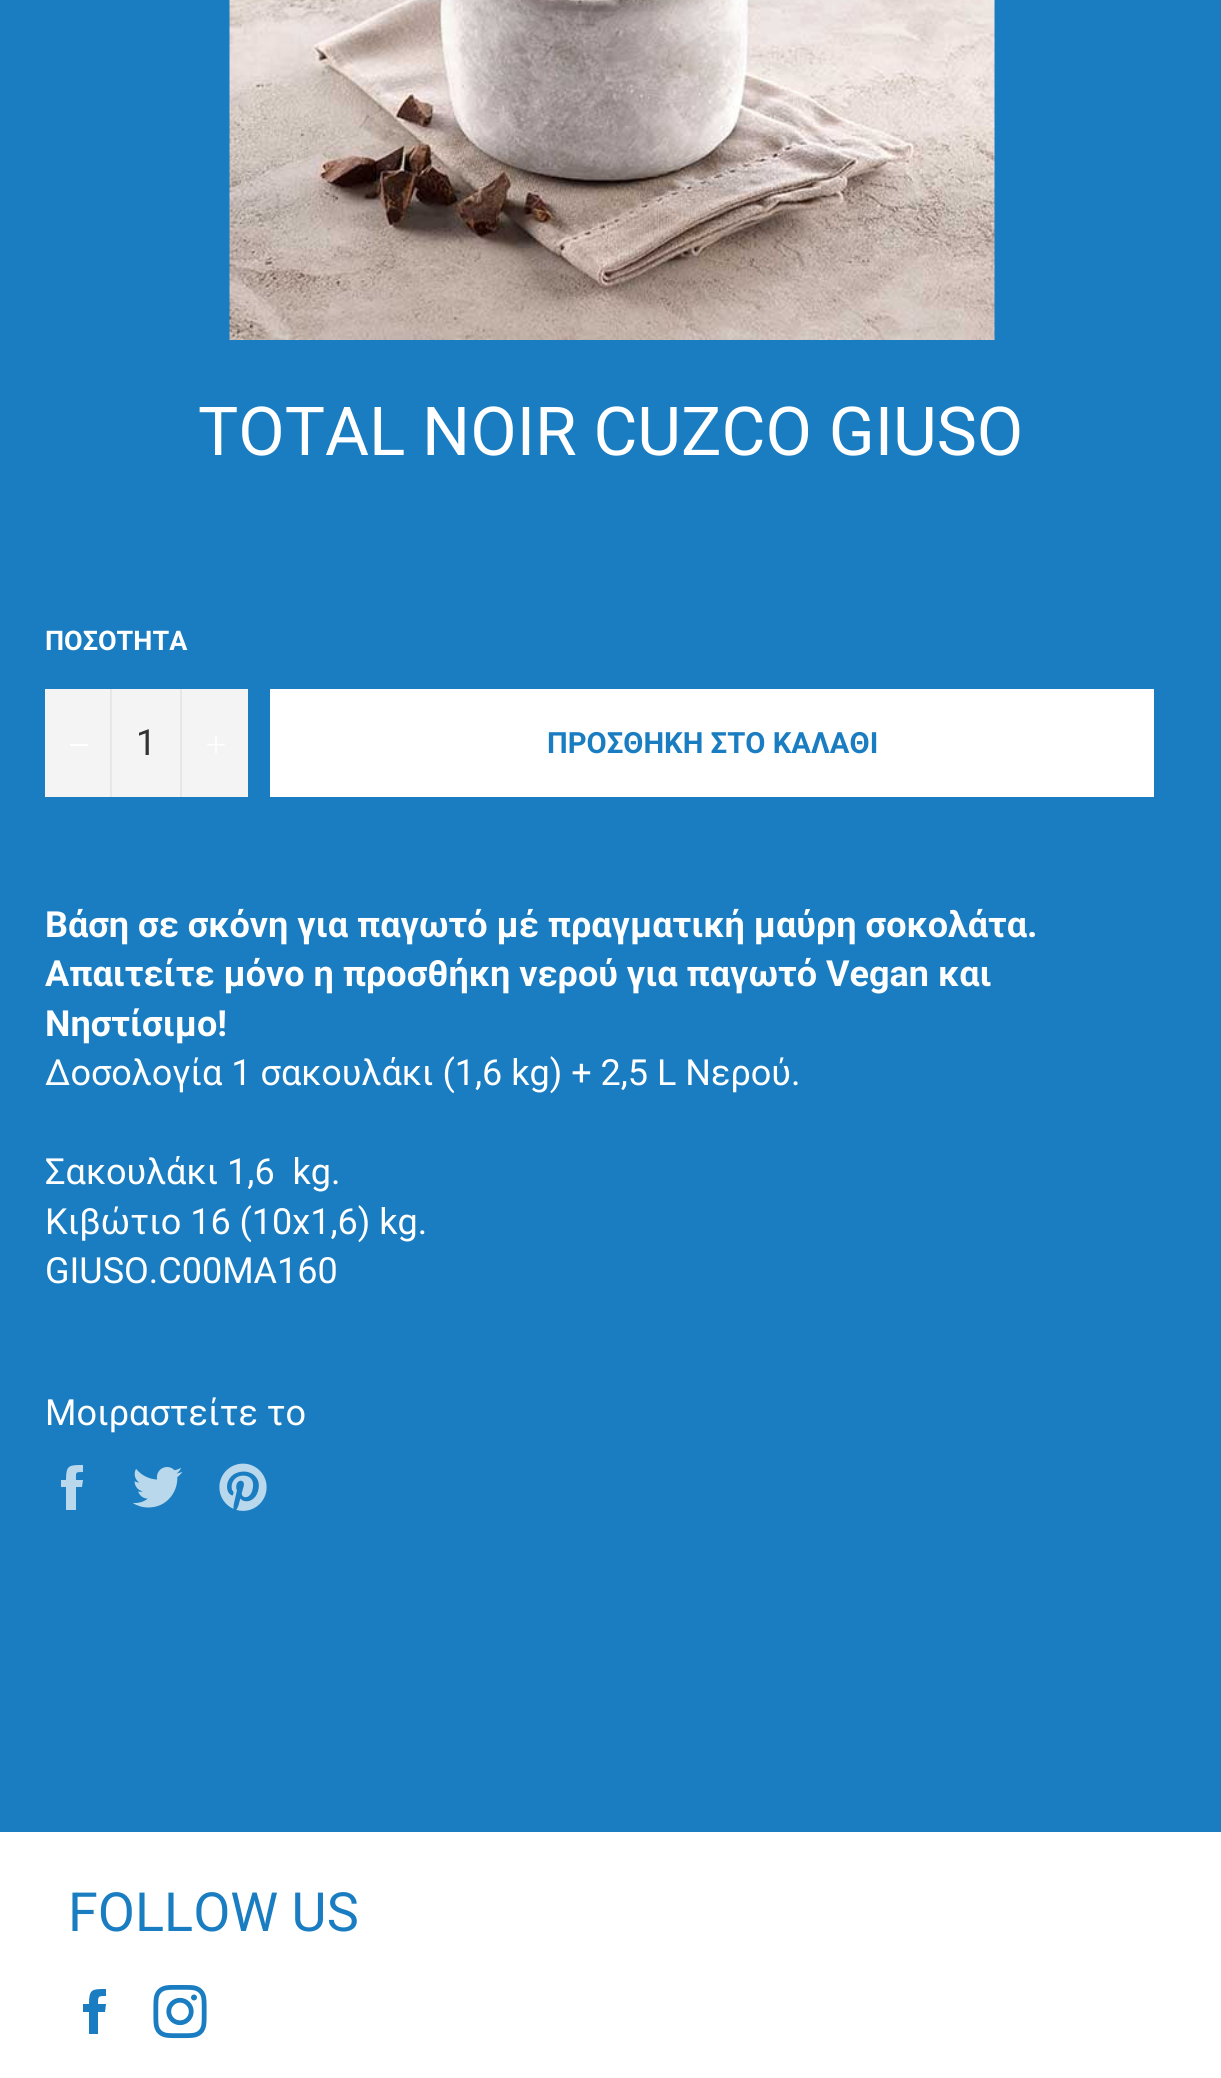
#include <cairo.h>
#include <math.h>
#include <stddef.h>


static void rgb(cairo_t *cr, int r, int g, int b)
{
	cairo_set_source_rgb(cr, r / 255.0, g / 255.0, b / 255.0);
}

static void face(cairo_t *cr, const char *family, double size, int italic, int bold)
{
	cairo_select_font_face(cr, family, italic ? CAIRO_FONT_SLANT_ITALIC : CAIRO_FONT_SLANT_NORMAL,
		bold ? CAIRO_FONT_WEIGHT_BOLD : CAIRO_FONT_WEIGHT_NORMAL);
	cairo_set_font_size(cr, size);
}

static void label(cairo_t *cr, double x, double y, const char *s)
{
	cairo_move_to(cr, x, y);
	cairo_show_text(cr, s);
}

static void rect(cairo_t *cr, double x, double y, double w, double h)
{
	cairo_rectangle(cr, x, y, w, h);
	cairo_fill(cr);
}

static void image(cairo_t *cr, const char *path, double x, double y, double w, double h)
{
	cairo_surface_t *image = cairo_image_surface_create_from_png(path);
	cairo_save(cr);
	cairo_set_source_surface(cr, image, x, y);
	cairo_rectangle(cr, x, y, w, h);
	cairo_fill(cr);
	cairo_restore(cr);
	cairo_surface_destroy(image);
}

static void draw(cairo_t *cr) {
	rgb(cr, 26, 125, 193);
	cairo_paint(cr);
	image(cr, "image0.png", 229, 0, 766, 340);
	face(cr, "Roboto", 67.5, 0, 0);
	rgb(cr, 255, 255, 255);
	label(cr, 198, 455, "TOTAL NOIR CUZCO GIUSO");
	face(cr, "Roboto", 27, 0, 1);
	label(cr, 45, 650, "ΠΟΣΟΤΗΤΑ");
	rgb(cr, 244, 244, 244);
	rect(cr, 45, 689, 203, 108);
	rgb(cr, 231, 231, 231);
	rect(cr, 110, 689, 2, 108);
	rgb(cr, 255, 255, 255);
	rect(cr, 70, 744, 18, 2);
	face(cr, "Roboto", 36, 0, 0);
	rgb(cr, 51, 51, 51);
	label(cr, 136, 755, "1");
	rgb(cr, 231, 231, 231);
	rect(cr, 180, 689, 2, 108);
	image(cr, "image1.png", 207, 736, 18, 17);
	rgb(cr, 255, 255, 255);
	rect(cr, 270, 689, 884, 108);
	face(cr, "Roboto", 29.25, 0, 1);
	rgb(cr, 26, 125, 193);
	label(cr, 547, 753, "ΠΡΟΣΘΗΚΗ ΣΤΟ ΚΑΛΑΘΙ");
	face(cr, "Roboto", 36, 0, 1);
	rgb(cr, 255, 255, 255);
	label(cr, 45, 937, "Βάση σε σκόνη για παγωτό μέ πραγματική μαύρη σοκολάτα.");
	label(cr, 45, 986, "Απαιτείτε μόνο η προσθήκη νερού για παγωτό Vegan και");
	label(cr, 45, 1036, "Νηστίσιμο!");
	face(cr, "Roboto", 36, 0, 0);
	label(cr, 45, 1085, "Δοσολογία 1 σακουλάκι (1,6 kg) + 2,5 L Νερού.");
	label(cr, 45, 1184, "Σακουλάκι 1,6  kg.");
	label(cr, 45, 1234, "Κιβώτιο 16 (10x1,6) kg.");
	label(cr, 45, 1283, "GIUSO.C00MA160");
	label(cr, 45, 1425, "Μοιραστείτε το");
	rgb(cr, 186, 216, 236);
	cairo_new_path(cr);
	cairo_move_to(cr, 76, 1480);
	cairo_curve_to(cr, 76, 1472, 75, 1472, 83, 1472);
	cairo_line_to(cr, 83, 1465);
	cairo_curve_to(cr, 69, 1465, 66, 1465, 66, 1480);
	cairo_line_to(cr, 61, 1480);
	cairo_line_to(cr, 61, 1487);
	cairo_line_to(cr, 66, 1487);
	cairo_line_to(cr, 66, 1510);
	cairo_line_to(cr, 76, 1510);
	cairo_line_to(cr, 76, 1487);
	cairo_line_to(cr, 82, 1487);
	cairo_line_to(cr, 83, 1480);
	cairo_close_path(cr);
	cairo_fill(cr);
	image(cr, "image2.png", 132, 1467, 51, 41);
	image(cr, "image3.png", 219, 1463, 48, 48);
	rgb(cr, 255, 255, 255);
	rect(cr, 0, 1832, 1221, 246);
	face(cr, "Roboto", 54, 0, 0);
	rgb(cr, 26, 125, 193);
	label(cr, 68, 1931, "FOLLOW US");
	cairo_new_path(cr);
	cairo_move_to(cr, 98, 2004);
	cairo_curve_to(cr, 98, 1996, 98, 1996, 106, 1996);
	cairo_line_to(cr, 106, 1989);
	cairo_curve_to(cr, 92, 1989, 89, 1989, 89, 2004);
	cairo_line_to(cr, 83, 2004);
	cairo_line_to(cr, 83, 2012);
	cairo_line_to(cr, 89, 2012);
	cairo_line_to(cr, 89, 2034);
	cairo_line_to(cr, 98, 2034);
	cairo_line_to(cr, 98, 2012);
	cairo_line_to(cr, 105, 2012);
	cairo_line_to(cr, 106, 2004);
	cairo_close_path(cr);
	cairo_fill(cr);
	image(cr, "image4.png", 153, 1985, 54, 54);
}

int main(void) {
	cairo_surface_t *surface = cairo_image_surface_create(CAIRO_FORMAT_RGB24, 1221, 2078);
	cairo_t *cr = cairo_create(surface);
	cairo_font_options_t *options = cairo_font_options_create();
	cairo_font_options_set_hint_metrics(options, CAIRO_HINT_METRICS_OFF);
	cairo_font_options_set_hint_style(options, CAIRO_HINT_STYLE_NONE);
	cairo_set_font_options(cr, options);
	cairo_set_miter_limit(cr, 4);
	draw(cr);
	cairo_surface_write_to_png(surface, "render.png");
	cairo_font_options_destroy(options);
	cairo_destroy(cr);
	cairo_surface_destroy(surface);
	return 0;
}
